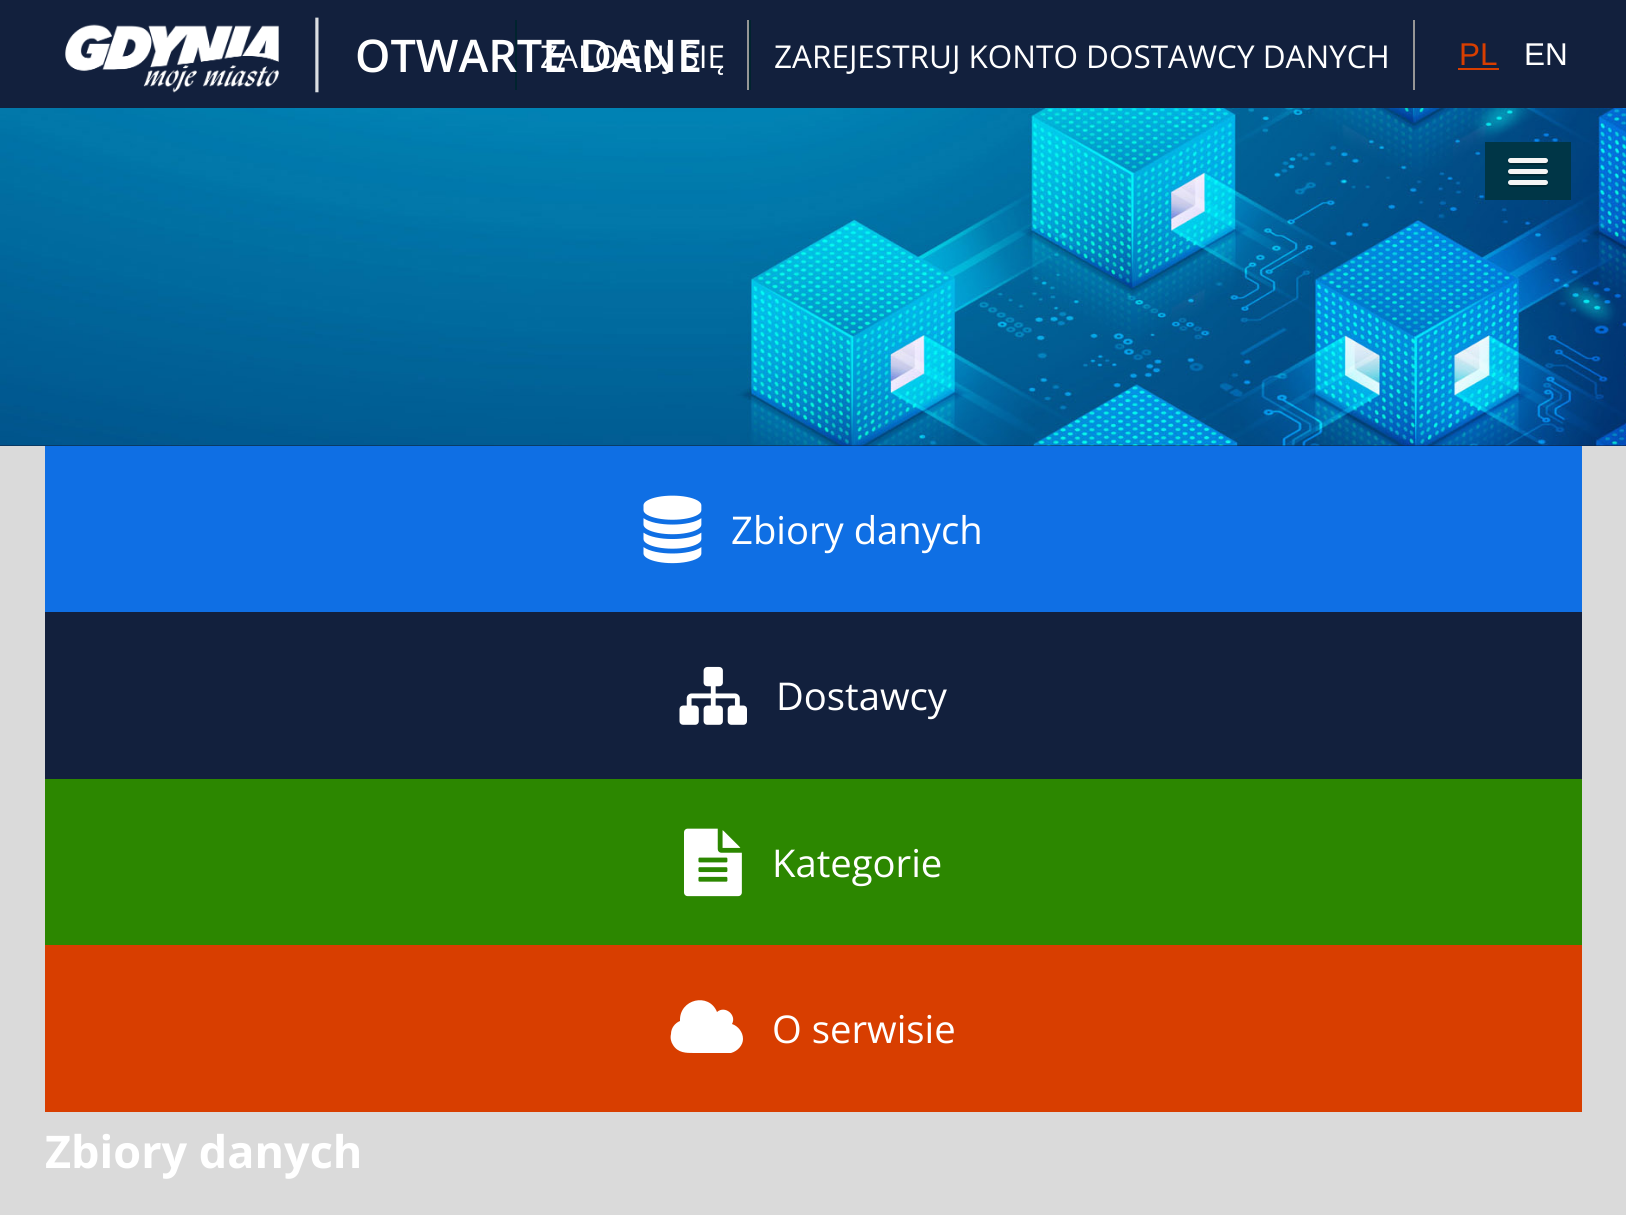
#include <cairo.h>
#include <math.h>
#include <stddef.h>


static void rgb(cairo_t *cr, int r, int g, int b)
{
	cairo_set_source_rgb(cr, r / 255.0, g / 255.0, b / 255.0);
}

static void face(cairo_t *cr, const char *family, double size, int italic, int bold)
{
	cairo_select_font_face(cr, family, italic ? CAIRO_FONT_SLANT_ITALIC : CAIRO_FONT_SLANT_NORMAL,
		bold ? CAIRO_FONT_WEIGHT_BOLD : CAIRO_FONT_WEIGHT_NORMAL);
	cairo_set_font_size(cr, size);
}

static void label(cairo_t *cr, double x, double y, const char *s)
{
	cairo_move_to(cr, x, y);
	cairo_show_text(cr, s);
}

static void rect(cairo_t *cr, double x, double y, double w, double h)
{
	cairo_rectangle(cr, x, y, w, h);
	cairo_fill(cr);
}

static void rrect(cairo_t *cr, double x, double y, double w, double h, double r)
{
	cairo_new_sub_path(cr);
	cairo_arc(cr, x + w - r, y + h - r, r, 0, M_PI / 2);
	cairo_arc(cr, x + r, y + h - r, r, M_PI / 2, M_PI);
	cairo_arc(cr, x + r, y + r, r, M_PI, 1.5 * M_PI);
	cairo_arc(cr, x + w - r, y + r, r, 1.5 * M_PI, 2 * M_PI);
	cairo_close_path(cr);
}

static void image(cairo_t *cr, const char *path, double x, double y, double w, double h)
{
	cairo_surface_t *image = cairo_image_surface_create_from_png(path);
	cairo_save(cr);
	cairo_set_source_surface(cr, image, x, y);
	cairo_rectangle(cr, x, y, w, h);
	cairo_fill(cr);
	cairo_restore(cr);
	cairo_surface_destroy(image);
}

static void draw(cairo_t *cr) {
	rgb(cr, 218, 218, 218);
	cairo_paint(cr);
	rgb(cr, 18, 32, 61);
	rect(cr, 0, 0, 1626, 108);
	image(cr, "image0.png", 65, 24, 214, 69);
	face(cr, "Open Sans Light", 74, 0, 0);
	rgb(cr, 219, 222, 226);
	label(cr, 297, 74, "|");
	rgb(cr, 0, 35, 46);
	rect(cr, 515, 20, 2, 70);
	face(cr, "Open Sans", 31.5, 0, 0);
	rgb(cr, 255, 255, 255);
	label(cr, 540, 68, "ZALOGUJ SIĘ");
	face(cr, "Open Sans SemiBold", 45, 0, 0);
	label(cr, 355, 72, "OTWARTE DANE");
	rgb(cr, 150, 150, 150);
	rect(cr, 747, 20, 2, 70);
	rect(cr, 1413, 20, 2, 70);
	rgb(cr, 0, 35, 46);
	rect(cr, 749, 20, 2, 70);
	face(cr, "Open Sans", 31.5, 0, 0);
	rgb(cr, 255, 255, 255);
	label(cr, 774, 68, "ZAREJESTRUJ KONTO DOSTAWCY DANYCH");
	face(cr, "Liberation Sans", 31.5, 0, 0);
	rgb(cr, 216, 62, 0);
	label(cr, 1459, 65, "PL");
	rect(cr, 1458, 68, 41, 2);
	rgb(cr, 255, 255, 255);
	label(cr, 1524, 65, "EN");
	rgb(cr, 18, 32, 61);
	rect(cr, 0, 445, 1626, 1);
	image(cr, "image1.png", 0, 108, 1626, 338);
	rgb(cr, 0, 54, 71);
	rect(cr, 1485, 142, 86, 58);
	rgb(cr, 0, 41, 53);
	cairo_new_path(cr);
	cairo_move_to(cr, 1508, 161);
	cairo_curve_to(cr, 1506, 166, 1515, 165, 1516, 165);
	cairo_line_to(cr, 1540, 165);
	cairo_curve_to(cr, 1540, 165, 1551, 166, 1548, 161);
	cairo_line_to(cr, 1546, 162);
	cairo_curve_to(cr, 1542, 162, 1510, 163, 1508, 161);
	cairo_close_path(cr);
	cairo_fill(cr);
	rgb(cr, 245, 245, 245);
	rrect(cr, 1508, 158, 40, 5, 2.5);
	cairo_fill(cr);
	rgb(cr, 0, 41, 53);
	cairo_new_path(cr);
	cairo_move_to(cr, 1508, 173);
	cairo_curve_to(cr, 1506, 177, 1515, 176, 1516, 176);
	cairo_line_to(cr, 1540, 176);
	cairo_curve_to(cr, 1540, 176, 1550, 177, 1548, 172);
	cairo_line_to(cr, 1546, 173);
	cairo_curve_to(cr, 1542, 174, 1509, 174, 1508, 173);
	cairo_close_path(cr);
	cairo_fill(cr);
	rgb(cr, 245, 245, 245);
	rrect(cr, 1508, 169, 40, 5, 2.5);
	cairo_fill(cr);
	rgb(cr, 0, 41, 53);
	cairo_new_path(cr);
	cairo_move_to(cr, 1508, 184);
	cairo_curve_to(cr, 1507, 188, 1515, 187, 1516, 187);
	cairo_line_to(cr, 1540, 187);
	cairo_curve_to(cr, 1541, 187, 1550, 188, 1548, 183);
	cairo_line_to(cr, 1546, 184);
	cairo_curve_to(cr, 1542, 185, 1509, 185, 1508, 184);
	cairo_close_path(cr);
	cairo_fill(cr);
	rgb(cr, 245, 245, 245);
	rrect(cr, 1508, 180, 40, 5, 2.5);
	cairo_fill(cr);
	rgb(cr, 15, 111, 228);
	rect(cr, 45, 446, 1537, 166);
	image(cr, "image2.png", 643, 495, 59, 69);
	face(cr, "Open Sans", 38.25, 0, 0);
	rgb(cr, 255, 255, 255);
	label(cr, 731, 544, "Zbiory danych");
	rgb(cr, 18, 32, 61);
	rect(cr, 45, 612, 1537, 167);
	image(cr, "image3.png", 679, 666, 68, 59);
	rgb(cr, 255, 255, 255);
	label(cr, 776, 710, "Dostawcy");
	rgb(cr, 44, 135, 0);
	rect(cr, 45, 779, 1537, 166);
	image(cr, "image4.png", 684, 828, 58, 69);
	rgb(cr, 255, 255, 255);
	label(cr, 772, 877, "Kategorie");
	rgb(cr, 216, 62, 0);
	rect(cr, 45, 945, 1537, 167);
	rgb(cr, 255, 255, 255);
	cairo_new_path(cr);
	cairo_move_to(cr, 743, 1039);
	cairo_curve_to(cr, 743, 1045, 738, 1051, 731, 1053);
	cairo_line_to(cr, 694, 1053);
	cairo_curve_to(cr, 686, 1053, 678, 1053, 673, 1045);
	cairo_curve_to(cr, 671, 1042, 670, 1038, 671, 1034);
	cairo_curve_to(cr, 671, 1028, 675, 1023, 680, 1021);
	cairo_curve_to(cr, 679, 999, 709, 992, 717, 1012);
	cairo_curve_to(cr, 725, 1005, 737, 1015, 732, 1024);
	cairo_curve_to(cr, 738, 1026, 743, 1032, 743, 1039);
	cairo_close_path(cr);
	cairo_fill(cr);
	label(cr, 772, 1043, "O serwisie");
	face(cr, "Open Sans", 45, 0, 1);
	label(cr, 45, 1168, "Zbiory danych");
	rect(cr, 0, 1215, 1626, 6);
}

int main(void) {
	cairo_surface_t *surface = cairo_image_surface_create(CAIRO_FORMAT_RGB24, 1626, 1221);
	cairo_t *cr = cairo_create(surface);
	cairo_font_options_t *options = cairo_font_options_create();
	cairo_font_options_set_hint_metrics(options, CAIRO_HINT_METRICS_OFF);
	cairo_font_options_set_hint_style(options, CAIRO_HINT_STYLE_NONE);
	cairo_set_font_options(cr, options);
	cairo_set_miter_limit(cr, 4);
	draw(cr);
	cairo_surface_write_to_png(surface, "render.png");
	cairo_font_options_destroy(options);
	cairo_destroy(cr);
	cairo_surface_destroy(surface);
	return 0;
}
